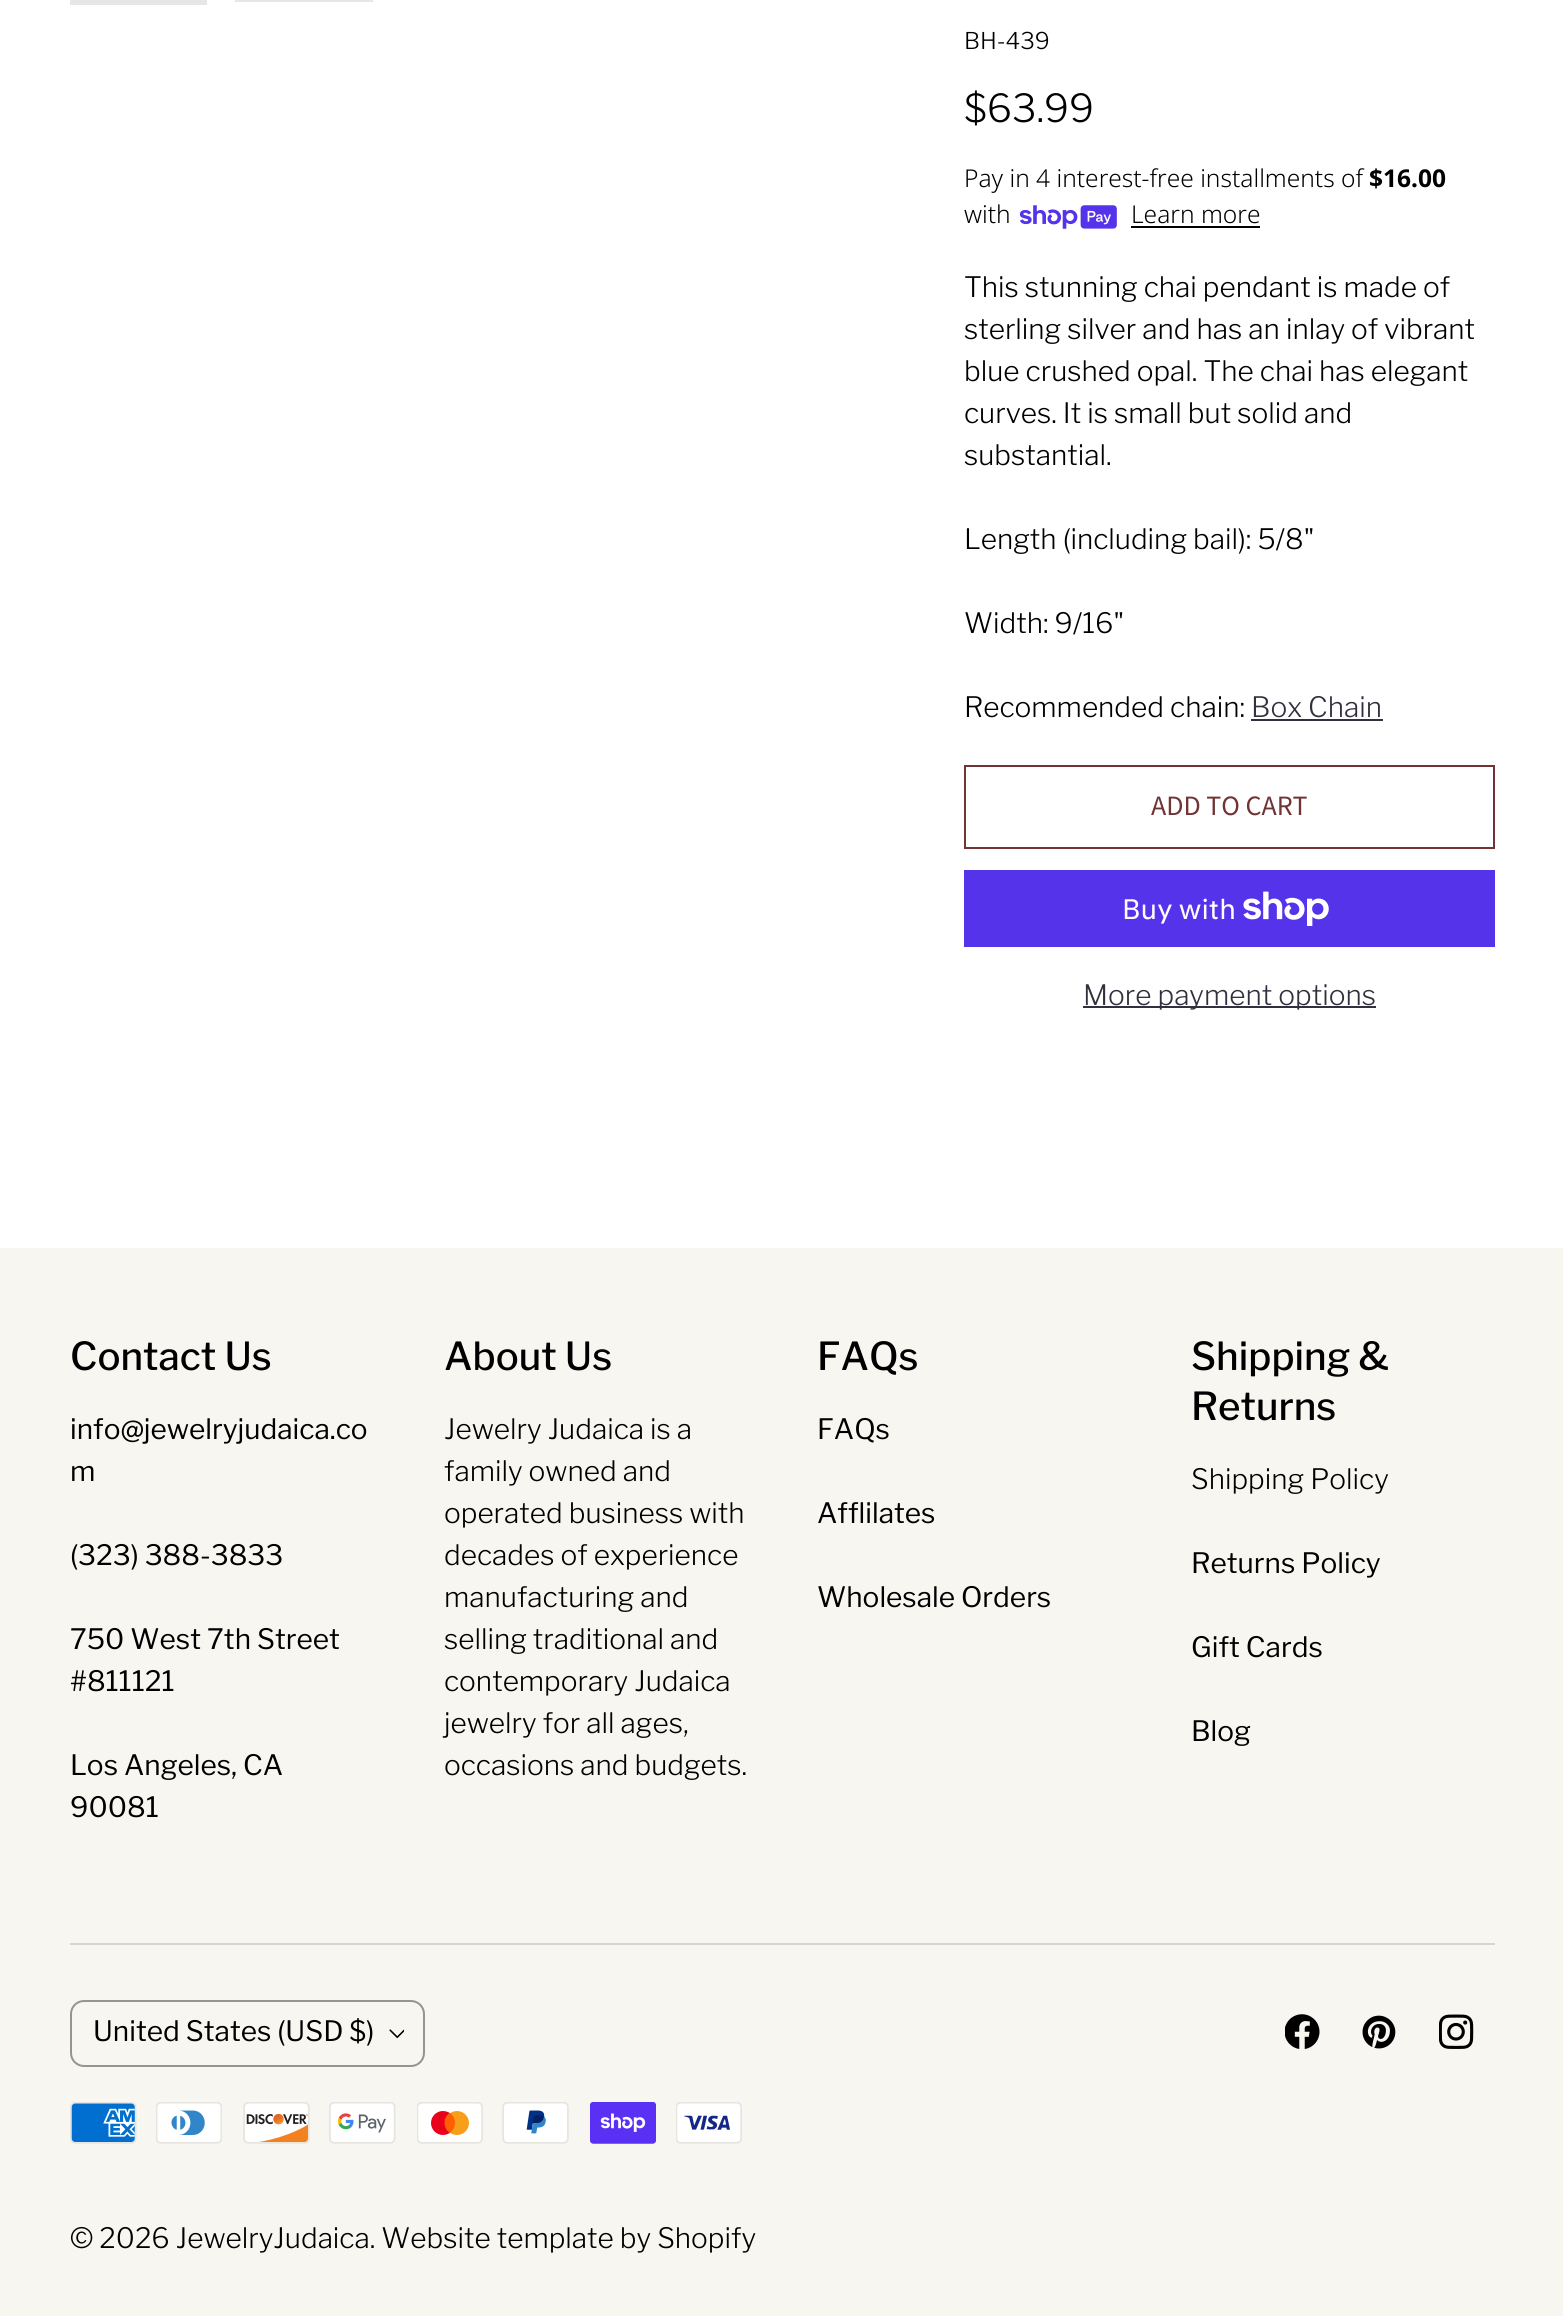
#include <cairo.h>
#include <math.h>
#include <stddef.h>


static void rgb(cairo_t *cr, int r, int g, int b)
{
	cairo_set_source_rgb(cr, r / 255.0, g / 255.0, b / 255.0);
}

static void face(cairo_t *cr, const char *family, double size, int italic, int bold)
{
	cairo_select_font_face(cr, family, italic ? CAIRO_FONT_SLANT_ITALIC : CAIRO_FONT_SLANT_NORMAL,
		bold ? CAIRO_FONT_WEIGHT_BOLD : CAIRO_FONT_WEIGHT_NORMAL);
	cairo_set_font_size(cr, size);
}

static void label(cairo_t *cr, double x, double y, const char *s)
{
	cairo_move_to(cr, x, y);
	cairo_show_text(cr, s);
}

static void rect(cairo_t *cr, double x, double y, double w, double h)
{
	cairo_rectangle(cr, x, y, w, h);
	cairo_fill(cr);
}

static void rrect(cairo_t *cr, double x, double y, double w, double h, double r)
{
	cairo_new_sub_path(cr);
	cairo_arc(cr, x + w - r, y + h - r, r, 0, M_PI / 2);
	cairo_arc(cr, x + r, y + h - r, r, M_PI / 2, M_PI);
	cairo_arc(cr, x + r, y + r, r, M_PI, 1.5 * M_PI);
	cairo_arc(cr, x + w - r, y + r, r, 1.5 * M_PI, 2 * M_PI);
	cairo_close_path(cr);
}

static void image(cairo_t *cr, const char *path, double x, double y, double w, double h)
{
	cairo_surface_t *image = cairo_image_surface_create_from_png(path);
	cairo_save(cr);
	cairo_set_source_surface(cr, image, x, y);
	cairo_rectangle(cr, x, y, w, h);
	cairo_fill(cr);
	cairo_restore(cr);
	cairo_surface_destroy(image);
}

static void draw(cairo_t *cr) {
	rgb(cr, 255, 255, 255);
	cairo_paint(cr);
	rgb(cr, 230, 230, 230);
	rect(cr, 70, 0, 137, 5);
	rect(cr, 235, 0, 138, 2);
	face(cr, "Libre Franklin Light", 23, 0, 0);
	rgb(cr, 0, 0, 0);
	label(cr, 964, 49, "BH-439");
	face(cr, "Libre Franklin Light", 38.5, 0, 0);
	label(cr, 964, 122, "$63.99");
	face(cr, "Noto Sans Light", 24.5, 0, 0);
	label(cr, 964, 187, "Pay in 4 interest-free installments of");
	face(cr, "Noto Sans", 24.5, 0, 1);
	label(cr, 1369, 187, "$16.00");
	face(cr, "Noto Sans Light", 24.5, 0, 0);
	label(cr, 964, 223, "with");
	image(cr, "image0.png", 1019, 205, 98, 24);
	label(cr, 1131, 223, "Learn more");
	rect(cr, 1131, 226, 129, 2);
	face(cr, "Libre Franklin Light", 28, 0, 0);
	label(cr, 964, 297, "This stunning chai pendant is made of");
	label(cr, 964, 339, "sterling silver and has an inlay of vibrant");
	label(cr, 964, 381, "blue crushed opal. The chai has elegant");
	label(cr, 964, 423, "curves. It is small but solid and");
	label(cr, 964, 465, "substantial.");
	label(cr, 964, 549, "Length (including bail): 5/8\"");
	label(cr, 964, 633, "Width: 9/16\"");
	label(cr, 964, 717, "Recommended chain:");
	rgb(cr, 50, 48, 61);
	label(cr, 1251, 717, "Box Chain");
	rect(cr, 1251, 719, 132, 2);
	cairo_rectangle(cr, 965, 766, 529, 82);
	rgb(cr, 113, 52, 52);
	cairo_stroke(cr);
	face(cr, "Source Sans Pro", 28, 0, 0);
	label(cr, 1151, 815, "ADD TO CART");
	rgb(cr, 84, 51, 235);
	rect(cr, 964, 870, 531, 77);
	face(cr, "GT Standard", 28, 0, 0);
	rgb(cr, 255, 255, 255);
	label(cr, 1122, 919, "Buy with");
	image(cr, "image1.png", 1243, 891, 86, 35);
	rgb(cr, 50, 48, 61);
	rect(cr, 1083, 1006, 293, 2);
	face(cr, "Libre Franklin Light", 28, 0, 0);
	label(cr, 1083, 1005, "More payment options");
	rgb(cr, 247, 246, 241);
	rect(cr, 0, 1248, 1563, 1068);
	face(cr, "Libre Franklin Medium", 38.5, 0, 0);
	rgb(cr, 0, 0, 0);
	label(cr, 70, 1370, "Contact Us");
	face(cr, "Libre Franklin", 28, 0, 0);
	label(cr, 70, 1439, "info@jewelryjudaica.co");
	label(cr, 70, 1481, "m");
	label(cr, 70, 1565, "(323) 388-3833");
	label(cr, 70, 1649, "750 West 7th Street");
	label(cr, 70, 1691, "#811121");
	label(cr, 70, 1775, "Los Angeles, CA");
	label(cr, 70, 1817, "90081");
	face(cr, "Libre Franklin Medium", 38.5, 0, 0);
	label(cr, 444, 1370, "About Us");
	face(cr, "Libre Franklin Light", 28, 0, 0);
	label(cr, 444, 1439, "Jewelry Judaica is a");
	label(cr, 444, 1481, "family owned and");
	label(cr, 444, 1523, "operated business with");
	label(cr, 444, 1565, "decades of experience");
	label(cr, 444, 1607, "manufacturing and");
	label(cr, 444, 1649, "selling traditional and");
	label(cr, 444, 1691, "contemporary Judaica");
	label(cr, 444, 1733, "jewelry for all ages,");
	label(cr, 444, 1775, "occasions and budgets.");
	face(cr, "Libre Franklin Medium", 38.5, 0, 0);
	label(cr, 817, 1370, "FAQs");
	face(cr, "Libre Franklin", 28, 0, 0);
	label(cr, 817, 1439, "FAQs");
	label(cr, 817, 1523, "Afflilates");
	label(cr, 817, 1607, "Wholesale Orders");
	face(cr, "Libre Franklin Medium", 38.5, 0, 0);
	label(cr, 1191, 1370, "Shipping &");
	label(cr, 1191, 1420, "Returns");
	face(cr, "Libre Franklin Light", 28, 0, 0);
	label(cr, 1191, 1489, "Shipping Policy");
	face(cr, "Libre Franklin", 28, 0, 0);
	label(cr, 1191, 1573, "Returns Policy");
	label(cr, 1191, 1657, "Gift Cards");
	label(cr, 1191, 1741, "Blog");
	rgb(cr, 214, 212, 203);
	rect(cr, 70, 1943, 1425, 2);
	rrect(cr, 71, 2001, 353, 65, 13);
	rgb(cr, 148, 148, 145);
	cairo_stroke(cr);
	rgb(cr, 0, 0, 0);
	label(cr, 93, 2041, "United States (USD $)");
	image(cr, "image2.png", 389, 2029, 15, 10);
	image(cr, "image3.png", 70, 2102, 67, 42);
	image(cr, "image4.png", 156, 2102, 66, 42);
	image(cr, "image5.png", 243, 2102, 67, 42);
	image(cr, "image6.png", 329, 2102, 67, 42);
	image(cr, "image7.png", 417, 2102, 66, 42);
	image(cr, "image8.png", 502, 2102, 67, 42);
	image(cr, "image9.png", 590, 2102, 66, 42);
	image(cr, "image10.png", 676, 2102, 66, 42);
	face(cr, "Libre Franklin Light", 28, 0, 0);
	label(cr, 70, 2248, "© 2026 JewelryJudaica. Website template by Shopify");
	image(cr, "image11.png", 1285, 2014, 35, 35);
	image(cr, "image12.png", 1362, 2015, 34, 34);
	image(cr, "image13.png", 1439, 2014, 35, 35);
}

int main(void) {
	cairo_surface_t *surface = cairo_image_surface_create(CAIRO_FORMAT_RGB24, 1563, 2316);
	cairo_t *cr = cairo_create(surface);
	cairo_font_options_t *options = cairo_font_options_create();
	cairo_font_options_set_hint_metrics(options, CAIRO_HINT_METRICS_OFF);
	cairo_font_options_set_hint_style(options, CAIRO_HINT_STYLE_NONE);
	cairo_set_font_options(cr, options);
	cairo_set_miter_limit(cr, 4);
	draw(cr);
	cairo_surface_write_to_png(surface, "render.png");
	cairo_font_options_destroy(options);
	cairo_destroy(cr);
	cairo_surface_destroy(surface);
	return 0;
}
